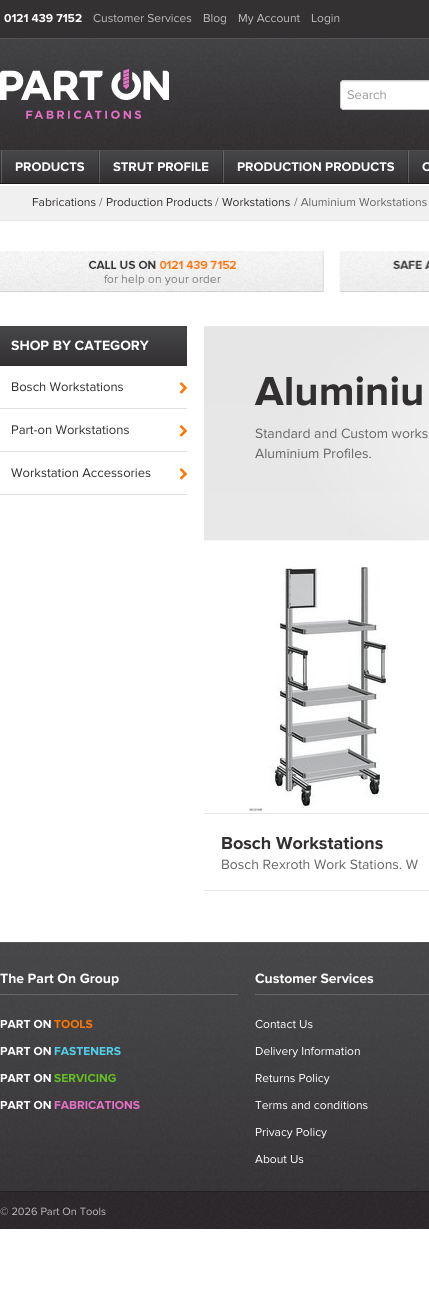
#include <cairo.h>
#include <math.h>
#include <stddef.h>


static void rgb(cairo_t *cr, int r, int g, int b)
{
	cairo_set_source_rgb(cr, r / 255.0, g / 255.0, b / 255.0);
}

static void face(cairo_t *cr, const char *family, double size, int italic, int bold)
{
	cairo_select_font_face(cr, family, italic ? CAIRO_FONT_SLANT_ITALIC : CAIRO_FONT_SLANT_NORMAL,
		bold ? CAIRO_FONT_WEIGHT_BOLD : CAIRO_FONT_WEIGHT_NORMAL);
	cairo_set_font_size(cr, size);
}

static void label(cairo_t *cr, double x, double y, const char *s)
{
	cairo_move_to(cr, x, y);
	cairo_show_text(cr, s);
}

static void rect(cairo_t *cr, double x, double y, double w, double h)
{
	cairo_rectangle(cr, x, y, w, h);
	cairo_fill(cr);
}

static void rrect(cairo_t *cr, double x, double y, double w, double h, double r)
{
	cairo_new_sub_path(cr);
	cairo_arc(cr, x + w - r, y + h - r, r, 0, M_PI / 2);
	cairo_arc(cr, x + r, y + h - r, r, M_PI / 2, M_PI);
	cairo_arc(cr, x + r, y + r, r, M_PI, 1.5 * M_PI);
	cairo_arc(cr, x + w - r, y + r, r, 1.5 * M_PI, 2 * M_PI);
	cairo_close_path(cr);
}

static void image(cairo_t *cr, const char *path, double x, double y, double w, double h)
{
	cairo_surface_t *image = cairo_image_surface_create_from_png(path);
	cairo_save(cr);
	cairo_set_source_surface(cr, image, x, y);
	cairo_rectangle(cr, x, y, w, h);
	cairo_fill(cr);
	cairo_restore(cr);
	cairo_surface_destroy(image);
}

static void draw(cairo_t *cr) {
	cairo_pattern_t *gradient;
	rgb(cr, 255, 255, 255);
	cairo_paint(cr);
	image(cr, "image0.png", 0, 0, 429, 150);
	cairo_set_source_rgba(cr, 0.196, 0.184, 0.192, 0.9);
	rect(cr, 0, 0, 429, 38);
	rgb(cr, 85, 84, 86);
	rect(cr, 0, 38, 429, 1);
	face(cr, "Proxima Nova", 12, 0, 1);
	rgb(cr, 255, 255, 255);
	label(cr, 4, 22, "0121 439 7152");
	face(cr, "Proxima Nova", 12, 0, 0);
	rgb(cr, 188, 188, 188);
	label(cr, 93, 22, "Customer Services");
	label(cr, 203, 22, "Blog");
	label(cr, 238, 22, "My Account");
	label(cr, 311, 22, "Login");
	image(cr, "image1.png", 0, 69, 169, 50);
	rgb(cr, 255, 255, 255);
	rrect(cr, 340, 80, 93, 30, 4);
	cairo_fill(cr);
	rgb(cr, 236, 236, 236);
	cairo_new_path(cr);
	cairo_move_to(cr, 344, 82);
	cairo_line_to(cr, 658, 82);
	cairo_curve_to(cr, 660, 82, 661, 83, 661, 85);
	cairo_line_to(cr, 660, 82);
	cairo_line_to(cr, 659, 81);
	cairo_line_to(cr, 344, 81);
	cairo_curve_to(cr, 342, 81, 341, 83, 341, 85);
	cairo_curve_to(cr, 341, 83, 342, 82, 344, 82);
	cairo_close_path(cr);
	cairo_fill(cr);
	rrect(cr, 340.5, 80.5, 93, 29, 3.5);
	rgb(cr, 204, 204, 204);
	cairo_set_line_width(cr, 1);
	cairo_stroke(cr);
	face(cr, "Proxima Nova", 13, 0, 0);
	rgb(cr, 153, 153, 153);
	label(cr, 347, 99, "Search");
	rgb(cr, 78, 78, 78);
	rect(cr, 0, 150, 429, 1);
	rgb(cr, 25, 25, 25);
	rect(cr, 0, 183, 429, 1);
	gradient = cairo_pattern_create_linear(215, 151, 215, 183);
	cairo_pattern_add_color_stop_rgba(gradient, 0.01, 0.275, 0.275, 0.282, 1);
	cairo_pattern_add_color_stop_rgba(gradient, 1, 0.196, 0.184, 0.192, 1);
	cairo_set_source(cr, gradient);
	cairo_pattern_destroy(gradient);
	rect(cr, 2, 151, 427, 32);
	gradient = cairo_pattern_create_linear(215, 151, 215, 183);
	cairo_pattern_add_color_stop_rgba(gradient, 0.01, 0.42, 0.42, 0.427, 1);
	cairo_pattern_add_color_stop_rgba(gradient, 1, 0.357, 0.349, 0.353, 1);
	cairo_set_source(cr, gradient);
	cairo_pattern_destroy(gradient);
	rect(cr, 408, 151, 1, 32);
	rect(cr, 223, 151, 1, 32);
	gradient = cairo_pattern_create_linear(215, 151, 215, 183);
	cairo_pattern_add_color_stop_rgba(gradient, 0.01, 0.22, 0.22, 0.227, 1);
	cairo_pattern_add_color_stop_rgba(gradient, 1, 0.157, 0.149, 0.153, 1);
	cairo_set_source(cr, gradient);
	cairo_pattern_destroy(gradient);
	rect(cr, 407, 151, 1, 32);
	gradient = cairo_pattern_create_linear(215, 151, 215, 183);
	cairo_pattern_add_color_stop_rgba(gradient, 0.01, 0.42, 0.42, 0.427, 1);
	cairo_pattern_add_color_stop_rgba(gradient, 1, 0.357, 0.349, 0.353, 1);
	cairo_set_source(cr, gradient);
	cairo_pattern_destroy(gradient);
	rect(cr, 99, 151, 1, 32);
	gradient = cairo_pattern_create_linear(215, 151, 215, 183);
	cairo_pattern_add_color_stop_rgba(gradient, 0.01, 0.22, 0.22, 0.227, 1);
	cairo_pattern_add_color_stop_rgba(gradient, 1, 0.157, 0.149, 0.153, 1);
	cairo_set_source(cr, gradient);
	cairo_pattern_destroy(gradient);
	rect(cr, 222, 151, 1, 32);
	gradient = cairo_pattern_create_linear(215, 151, 215, 183);
	cairo_pattern_add_color_stop_rgba(gradient, 0.01, 0.42, 0.42, 0.427, 1);
	cairo_pattern_add_color_stop_rgba(gradient, 1, 0.357, 0.349, 0.353, 1);
	cairo_set_source(cr, gradient);
	cairo_pattern_destroy(gradient);
	rect(cr, 1, 151, 1, 32);
	gradient = cairo_pattern_create_linear(215, 151, 215, 183);
	cairo_pattern_add_color_stop_rgba(gradient, 0.01, 0.22, 0.22, 0.227, 1);
	cairo_pattern_add_color_stop_rgba(gradient, 1, 0.157, 0.149, 0.153, 1);
	cairo_set_source(cr, gradient);
	cairo_pattern_destroy(gradient);
	rect(cr, 98, 151, 1, 32);
	rect(cr, 0, 151, 1, 32);
	face(cr, "Proxima Nova", 13, 0, 1);
	rgb(cr, 255, 255, 255);
	label(cr, 15, 171, "PRODUCTS");
	label(cr, 113, 171, "STRUT PROFILE");
	label(cr, 237, 171, "PRODUCTION PRODUCTS");
	label(cr, 422, 171, "C");
	rgb(cr, 241, 240, 240);
	rect(cr, 0, 186, 429, 34);
	rgb(cr, 234, 234, 234);
	rect(cr, 0, 220, 429, 1);
	face(cr, "Proxima Nova", 12, 0, 0);
	rgb(cr, 50, 47, 49);
	label(cr, 32, 206, "Fabrications");
	rgb(cr, 102, 102, 102);
	label(cr, 99, 206, "/");
	rgb(cr, 50, 47, 49);
	label(cr, 106, 206, "Production Products");
	rgb(cr, 102, 102, 102);
	label(cr, 215, 206, "/");
	rgb(cr, 50, 47, 49);
	label(cr, 222, 206, "Workstations");
	rgb(cr, 102, 102, 102);
	label(cr, 294, 206, "/ Aluminium Workstations");
	image(cr, "image2.png", 0, 251, 429, 41);
	gradient = cairo_pattern_create_linear(94, 326, 94, 366);
	cairo_pattern_add_color_stop_rgba(gradient, 0.01, 0.275, 0.275, 0.282, 1);
	cairo_pattern_add_color_stop_rgba(gradient, 1, 0.196, 0.184, 0.192, 1);
	cairo_set_source(cr, gradient);
	cairo_pattern_destroy(gradient);
	rect(cr, 0, 326, 187, 40);
	face(cr, "Proxima Nova", 14, 0, 1);
	rgb(cr, 255, 255, 255);
	label(cr, 11, 350, "SHOP BY CATEGORY");
	rgb(cr, 224, 224, 224);
	rect(cr, 0, 408, 187, 1);
	face(cr, "Proxima Nova", 13, 0, 0);
	rgb(cr, 50, 47, 49);
	label(cr, 11, 391, "Bosch Workstations");
	image(cr, "image3.png", 179, 382, 8, 12);
	rgb(cr, 224, 224, 224);
	rect(cr, 0, 451, 187, 1);
	rgb(cr, 50, 47, 49);
	label(cr, 11, 434, "Part-on Workstations");
	image(cr, "image3.png", 179, 425, 8, 12);
	rgb(cr, 224, 224, 224);
	rect(cr, 0, 494, 187, 1);
	rgb(cr, 50, 47, 49);
	label(cr, 11, 477, "Workstation Accessories");
	image(cr, "image3.png", 179, 468, 8, 12);
	image(cr, "image4.png", 204, 326, 225, 215);
	face(cr, "Proxima Nova", 42, 0, 1);
	label(cr, 255, 405, "Aluminiu");
	face(cr, "Proxima Nova", 14, 0, 0);
	rgb(cr, 102, 102, 102);
	label(cr, 255, 438, "Standard and Custom works");
	label(cr, 255, 458, "Aluminium Profiles.");
	image(cr, "image5.png", 247, 566, 141, 247);
	rgb(cr, 231, 231, 231);
	rect(cr, 204, 813, 225, 1);
	rect(cr, 204, 890, 225, 1);
	face(cr, "Proxima Nova", 18, 0, 1);
	rgb(cr, 50, 47, 49);
	label(cr, 221, 849, "Bosch Workstations");
	face(cr, "Proxima Nova", 14, 0, 0);
	rgb(cr, 102, 102, 102);
	label(cr, 221, 869, "Bosch Rexroth Work Stations. W");
	image(cr, "image6.png", 0, 942, 429, 249);
	rect(cr, 0, 994, 238, 1);
	face(cr, "Proxima Nova", 14, 0, 1);
	rgb(cr, 255, 255, 255);
	label(cr, 0, 983, "The Part On Group");
	face(cr, "Proxima Nova", 12, 0, 1);
	label(cr, 0, 1028, "PART ON");
	rgb(cr, 254, 119, 0);
	label(cr, 54, 1028, "TOOLS");
	rgb(cr, 255, 255, 255);
	label(cr, 0, 1055, "PART ON");
	rgb(cr, 83, 207, 234);
	label(cr, 54, 1055, "FASTENERS");
	rgb(cr, 255, 255, 255);
	label(cr, 0, 1082, "PART ON");
	rgb(cr, 101, 189, 36);
	label(cr, 54, 1082, "SERVICING");
	rgb(cr, 255, 255, 255);
	label(cr, 0, 1109, "PART ON");
	rgb(cr, 231, 112, 199);
	label(cr, 54, 1109, "FABRICATIONS");
	rgb(cr, 102, 102, 102);
	rect(cr, 255, 994, 174, 1);
	face(cr, "Proxima Nova", 14, 0, 1);
	rgb(cr, 255, 255, 255);
	label(cr, 255, 983, "Customer Services");
	face(cr, "Proxima Nova", 12, 0, 0);
	label(cr, 255, 1028, "Contact Us");
	label(cr, 255, 1055, "Delivery Information");
	label(cr, 255, 1082, "Returns Policy");
	label(cr, 255, 1109, "Terms and conditions");
	label(cr, 255, 1136, "Privacy Policy");
	label(cr, 255, 1163, "About Us");
	image(cr, "image7.png", 0, 1192, 429, 37);
	rgb(cr, 33, 32, 33);
	rect(cr, 0, 1191, 429, 1);
	face(cr, "Proxima Nova", 11, 0, 0);
	rgb(cr, 188, 188, 188);
	label(cr, 0, 1215, "© 2026 Part On Tools");
}

int main(void) {
	cairo_surface_t *surface = cairo_image_surface_create(CAIRO_FORMAT_RGB24, 429, 1312);
	cairo_t *cr = cairo_create(surface);
	cairo_font_options_t *options = cairo_font_options_create();
	cairo_font_options_set_hint_metrics(options, CAIRO_HINT_METRICS_OFF);
	cairo_font_options_set_hint_style(options, CAIRO_HINT_STYLE_NONE);
	cairo_set_font_options(cr, options);
	cairo_set_miter_limit(cr, 4);
	draw(cr);
	cairo_surface_write_to_png(surface, "render.png");
	cairo_font_options_destroy(options);
	cairo_destroy(cr);
	cairo_surface_destroy(surface);
	return 0;
}
